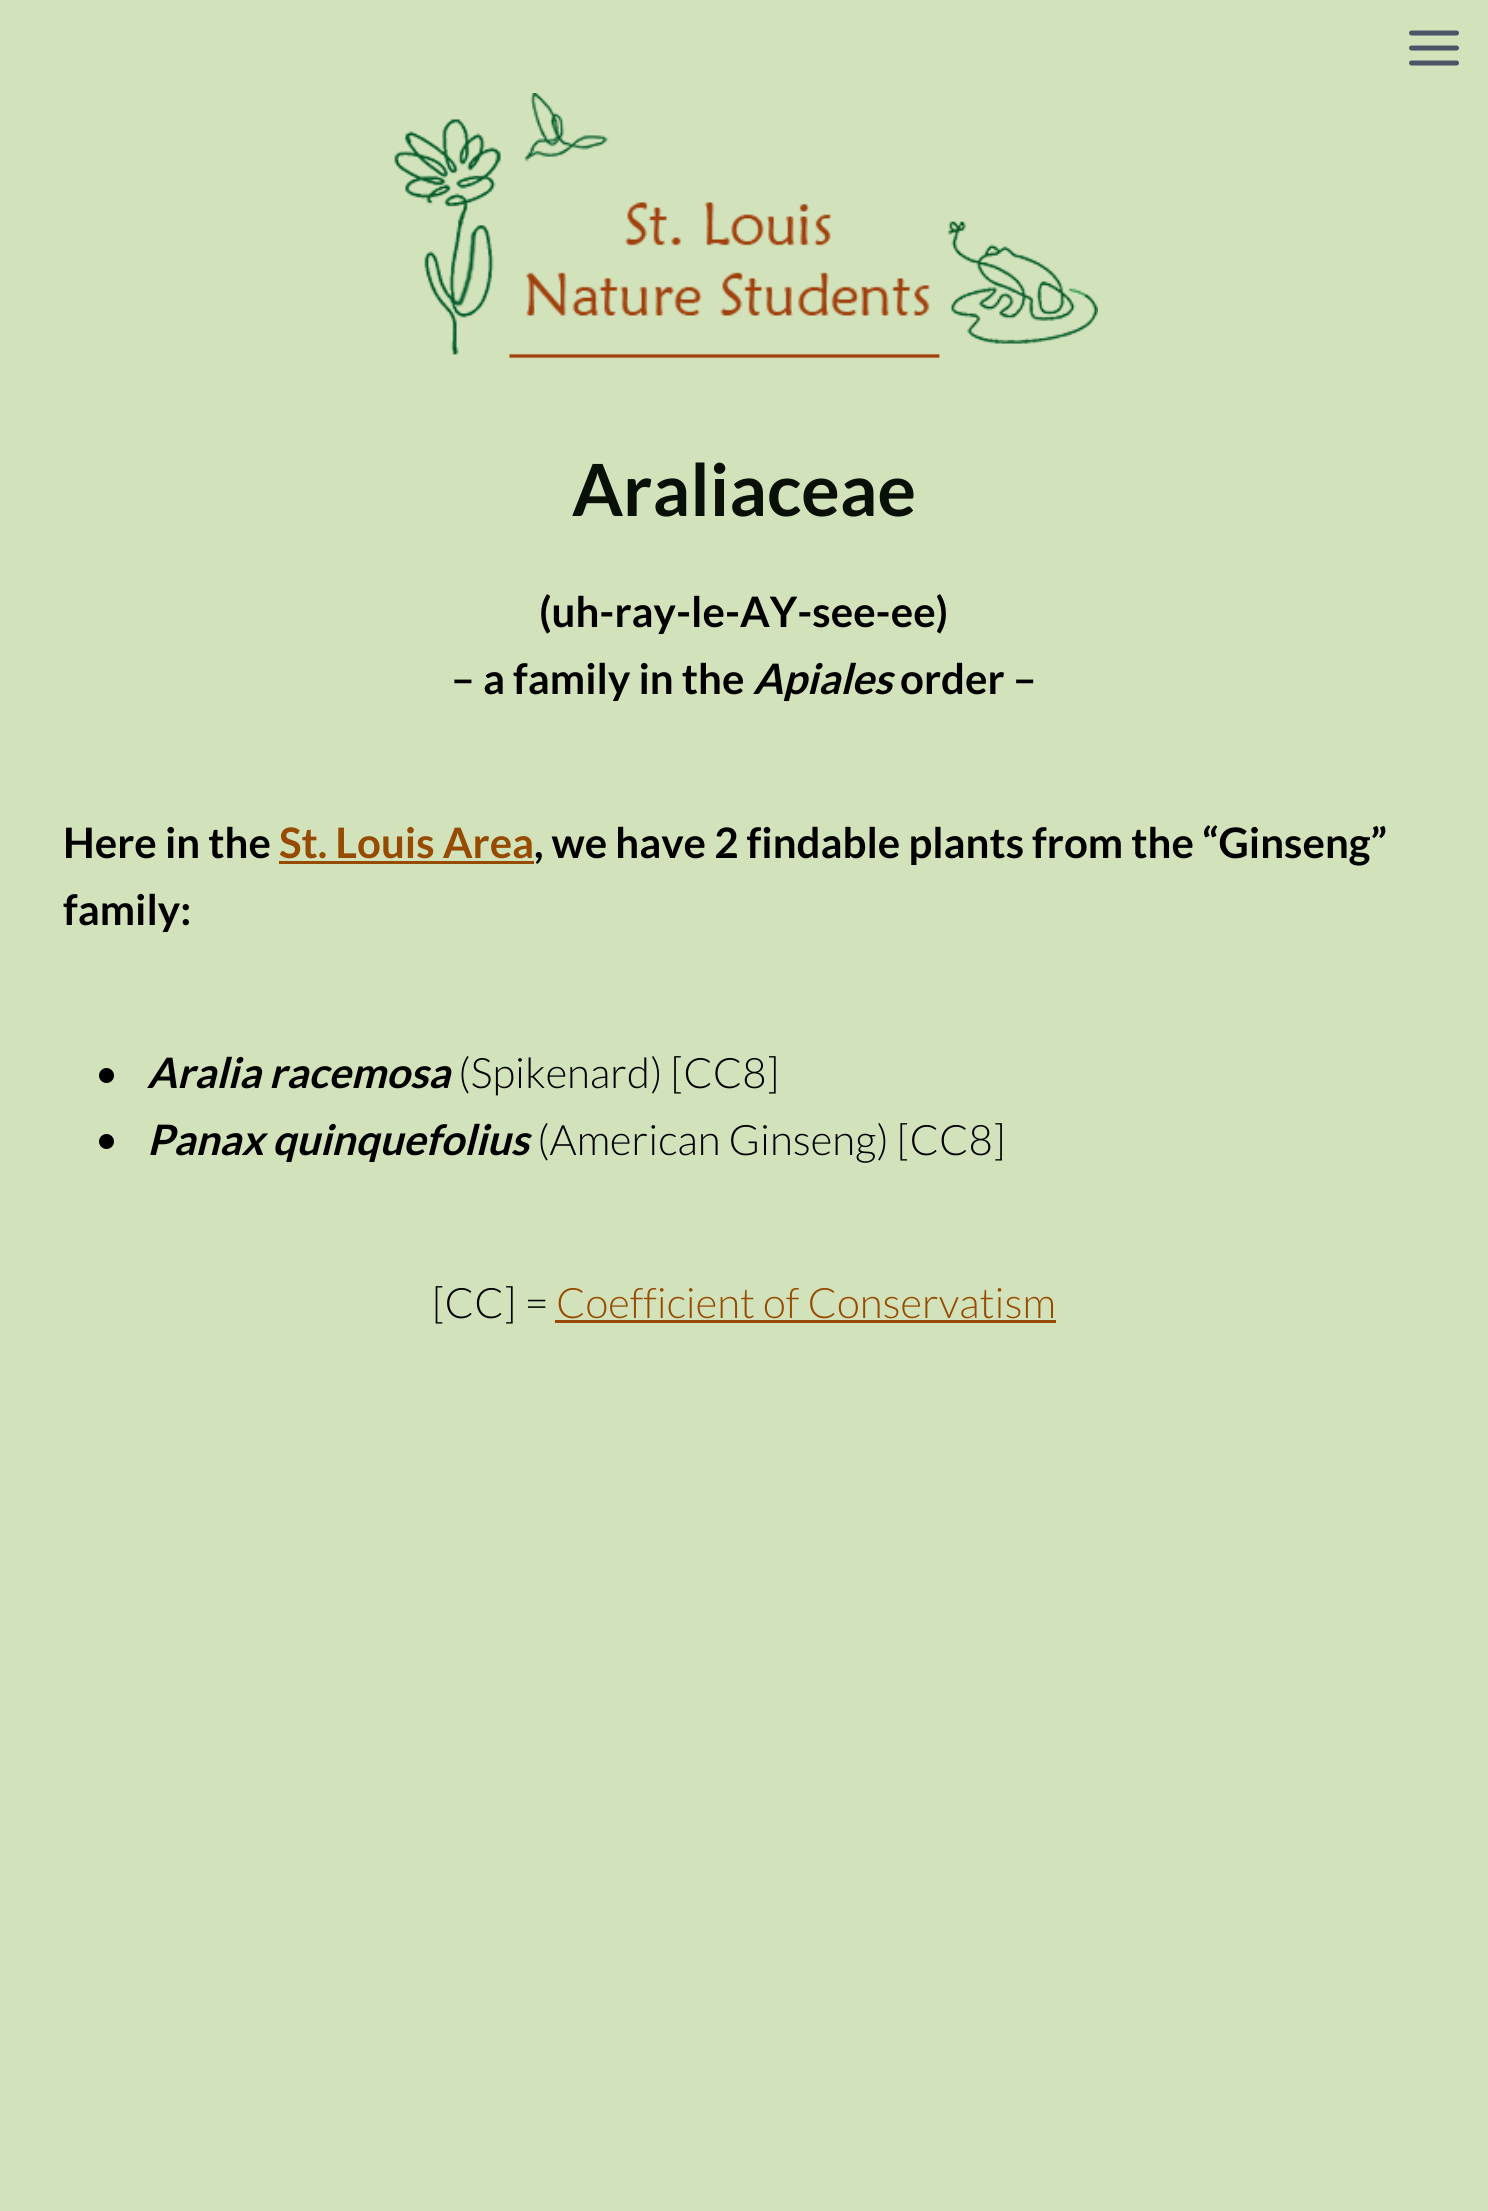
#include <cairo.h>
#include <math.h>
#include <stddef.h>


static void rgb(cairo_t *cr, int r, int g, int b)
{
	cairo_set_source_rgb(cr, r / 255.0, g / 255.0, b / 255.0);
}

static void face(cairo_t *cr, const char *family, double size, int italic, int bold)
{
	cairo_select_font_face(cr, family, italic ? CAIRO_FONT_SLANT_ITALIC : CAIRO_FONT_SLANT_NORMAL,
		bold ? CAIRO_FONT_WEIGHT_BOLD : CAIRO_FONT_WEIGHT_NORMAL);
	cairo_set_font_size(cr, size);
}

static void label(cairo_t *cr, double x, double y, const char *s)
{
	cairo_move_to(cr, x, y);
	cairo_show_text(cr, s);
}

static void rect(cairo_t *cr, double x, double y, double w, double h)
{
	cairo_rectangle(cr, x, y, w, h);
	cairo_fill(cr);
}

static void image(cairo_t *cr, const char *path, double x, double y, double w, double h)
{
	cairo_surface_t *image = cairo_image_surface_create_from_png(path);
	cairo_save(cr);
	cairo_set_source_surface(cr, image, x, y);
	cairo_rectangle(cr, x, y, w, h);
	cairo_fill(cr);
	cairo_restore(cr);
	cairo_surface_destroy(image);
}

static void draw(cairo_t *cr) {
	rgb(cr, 210, 227, 188);
	cairo_paint(cr);
	image(cr, "image0.png", 1409, 30, 50, 36);
	image(cr, "image1.png", 394, 93, 704, 266);
	face(cr, "Lato", 72, 0, 1);
	rgb(cr, 8, 16, 7);
	label(cr, 572, 516, "Araliaceae");
	face(cr, "Lato", 42, 0, 1);
	rgb(cr, 0, 0, 0);
	label(cr, 539, 627, "(uh-ray-le-AY-see-ee)");
	label(cr, 451, 694, "– a family in the");
	face(cr, "Lato", 42, 1, 1);
	label(cr, 753, 694, "Apiales");
	face(cr, "Lato", 42, 0, 1);
	label(cr, 900, 694, "order –");
	label(cr, 63, 858, "Here in the");
	rgb(cr, 150, 75, 0);
	label(cr, 279, 858, "St. Louis Area");
	rgb(cr, 0, 0, 0);
	label(cr, 534, 858, ", we have 2 findable plants from the “Ginseng”");
	rgb(cr, 150, 75, 0);
	rect(cr, 279, 861, 255, 3);
	rgb(cr, 0, 0, 0);
	label(cr, 63, 925, "family:");
	cairo_new_path(cr);
	cairo_arc(cr, 106.5, 1075.5, 7.5, 0, 2 * M_PI);
	cairo_fill(cr);
	face(cr, "Lato", 42, 1, 1);
	label(cr, 147, 1088, "Aralia racemosa");
	face(cr, "Lato Light", 42, 0, 0);
	label(cr, 458, 1088, "(Spikenard) [CC8]");
	cairo_new_path(cr);
	cairo_arc(cr, 106.5, 1141.5, 7.5, 0, 2 * M_PI);
	cairo_fill(cr);
	face(cr, "Lato", 42, 1, 1);
	label(cr, 147, 1155, "Panax quinquefolius");
	face(cr, "Lato Light", 42, 0, 0);
	label(cr, 537, 1155, "(American Ginseng) [CC8]");
	label(cr, 432, 1318, "[CC] =");
	rgb(cr, 150, 75, 0);
	label(cr, 556, 1318, "Coefficient of Conservatism");
	rect(cr, 555, 1320, 501, 3);
}

int main(void) {
	cairo_surface_t *surface = cairo_image_surface_create(CAIRO_FORMAT_RGB24, 1488, 2211);
	cairo_t *cr = cairo_create(surface);
	cairo_font_options_t *options = cairo_font_options_create();
	cairo_font_options_set_hint_metrics(options, CAIRO_HINT_METRICS_OFF);
	cairo_font_options_set_hint_style(options, CAIRO_HINT_STYLE_NONE);
	cairo_set_font_options(cr, options);
	cairo_set_miter_limit(cr, 4);
	draw(cr);
	cairo_surface_write_to_png(surface, "render.png");
	cairo_font_options_destroy(options);
	cairo_destroy(cr);
	cairo_surface_destroy(surface);
	return 0;
}
